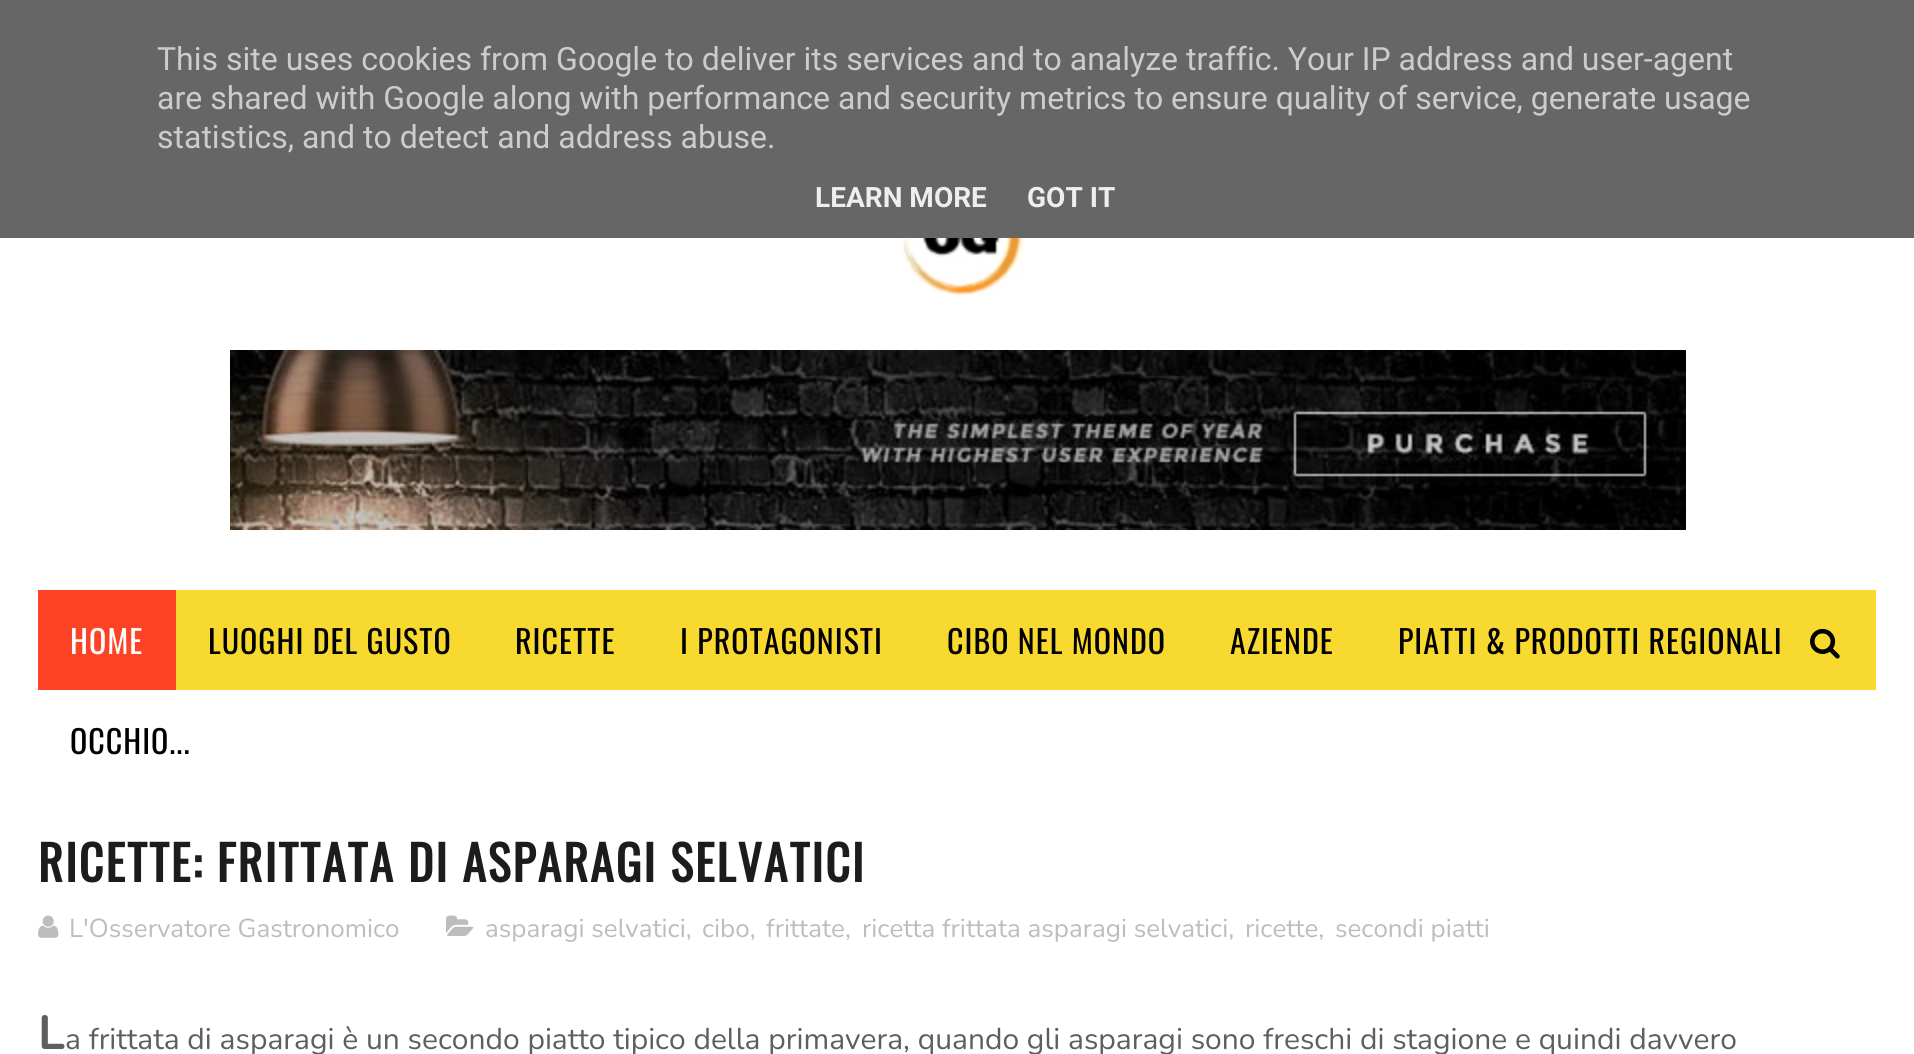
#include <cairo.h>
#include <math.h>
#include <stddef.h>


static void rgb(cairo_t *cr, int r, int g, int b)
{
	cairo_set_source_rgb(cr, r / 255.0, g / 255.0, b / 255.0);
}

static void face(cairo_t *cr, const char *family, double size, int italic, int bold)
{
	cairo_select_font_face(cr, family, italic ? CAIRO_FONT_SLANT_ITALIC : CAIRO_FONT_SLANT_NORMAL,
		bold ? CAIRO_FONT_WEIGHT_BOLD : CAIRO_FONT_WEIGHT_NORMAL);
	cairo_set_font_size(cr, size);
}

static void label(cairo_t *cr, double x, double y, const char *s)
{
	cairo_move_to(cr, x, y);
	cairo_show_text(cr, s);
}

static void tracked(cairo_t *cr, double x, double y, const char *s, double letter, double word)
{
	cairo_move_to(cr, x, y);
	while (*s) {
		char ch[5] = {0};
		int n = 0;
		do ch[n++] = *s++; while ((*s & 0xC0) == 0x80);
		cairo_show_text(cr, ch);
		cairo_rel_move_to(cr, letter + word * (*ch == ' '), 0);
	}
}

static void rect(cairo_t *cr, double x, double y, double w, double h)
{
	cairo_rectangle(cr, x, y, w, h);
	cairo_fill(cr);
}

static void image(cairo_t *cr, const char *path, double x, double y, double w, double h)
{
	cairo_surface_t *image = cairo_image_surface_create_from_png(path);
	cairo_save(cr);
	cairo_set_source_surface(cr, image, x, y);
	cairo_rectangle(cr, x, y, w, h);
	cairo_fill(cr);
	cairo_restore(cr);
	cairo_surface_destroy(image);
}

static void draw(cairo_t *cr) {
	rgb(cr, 255, 255, 255);
	cairo_paint(cr);
	rgb(cr, 102, 102, 102);
	rect(cr, 0, 0, 1914, 238);
	face(cr, "Roboto", 32, 0, 0);
	rgb(cr, 204, 204, 204);
	label(cr, 157, 70, "This site uses cookies from Google to deliver its services and to analyze traffic. Your IP address and user-agent");
	label(cr, 157, 109, "are shared with Google along with performance and security metrics to ensure quality of service, generate usage");
	label(cr, 157, 148, "statistics, and to detect and address abuse.");
	face(cr, "Roboto", 28, 0, 1);
	rgb(cr, 238, 238, 238);
	label(cr, 815, 207, "LEARN MORE");
	label(cr, 1027, 207, "GOT IT");
	image(cr, "image0.png", 896, 238, 129, 57);
	image(cr, "image1.png", 230, 350, 1456, 180);
	rgb(cr, 248, 217, 47);
	rect(cr, 176, 590, 1700, 100);
	face(cr, "Oswald", 32, 0, 0);
	rgb(cr, 0, 0, 0);
	tracked(cr, 208, 654, "LUOGHI DEL GUSTO", 1, 0);
	tracked(cr, 515, 654, "RICETTE", 1, 0);
	tracked(cr, 680, 654, "I PROTAGONISTI", 1, 0);
	tracked(cr, 947, 654, "CIBO NEL MONDO", 1, 0);
	tracked(cr, 1230, 654, "AZIENDE", 1, 0);
	tracked(cr, 1398, 654, "PIATTI & PRODOTTI REGIONALI", 1, 0);
	tracked(cr, 70, 754, "OCCHIO...", 1, 0);
	rgb(cr, 253, 67, 38);
	rect(cr, 38, 590, 138, 100);
	rgb(cr, 255, 255, 255);
	tracked(cr, 70, 654, "HOME", 1, 0);
	image(cr, "image2.png", 1810, 628, 30, 31);
	face(cr, "Oswald", 48, 0, 1);
	rgb(cr, 28, 28, 28);
	tracked(cr, 38, 882, "RICETTE: FRITTATA DI ASPARAGI SELVATICI", 2, 0);
	image(cr, "image3.png", 38, 915, 21, 23);
	face(cr, "Nunito", 26, 0, 0);
	rgb(cr, 189, 189, 189);
	label(cr, 69, 937, "L'Osservatore Gastronomico");
	image(cr, "image4.png", 446, 915, 28, 21);
	label(cr, 485, 937, "asparagi selvatici,");
	label(cr, 702, 937, "cibo,");
	label(cr, 766, 937, "frittate,");
	label(cr, 862, 937, "ricetta frittata asparagi selvatici,");
	label(cr, 1245, 937, "ricette,");
	label(cr, 1335, 937, "secondi piatti");
	face(cr, "Nunito", 48, 0, 1);
	rgb(cr, 94, 94, 94);
	label(cr, 38, 1049, "L");
	face(cr, "Nunito", 30, 0, 0);
	label(cr, 65, 1049, "a frittata di asparagi è un secondo piatto tipico della primavera, quando gli asparagi sono freschi di stagione e quindi davvero");
}

int main(void) {
	cairo_surface_t *surface = cairo_image_surface_create(CAIRO_FORMAT_RGB24, 1914, 1054);
	cairo_t *cr = cairo_create(surface);
	cairo_font_options_t *options = cairo_font_options_create();
	cairo_font_options_set_hint_metrics(options, CAIRO_HINT_METRICS_OFF);
	cairo_font_options_set_hint_style(options, CAIRO_HINT_STYLE_NONE);
	cairo_set_font_options(cr, options);
	cairo_set_miter_limit(cr, 4);
	draw(cr);
	cairo_surface_write_to_png(surface, "render.png");
	cairo_font_options_destroy(options);
	cairo_destroy(cr);
	cairo_surface_destroy(surface);
	return 0;
}
